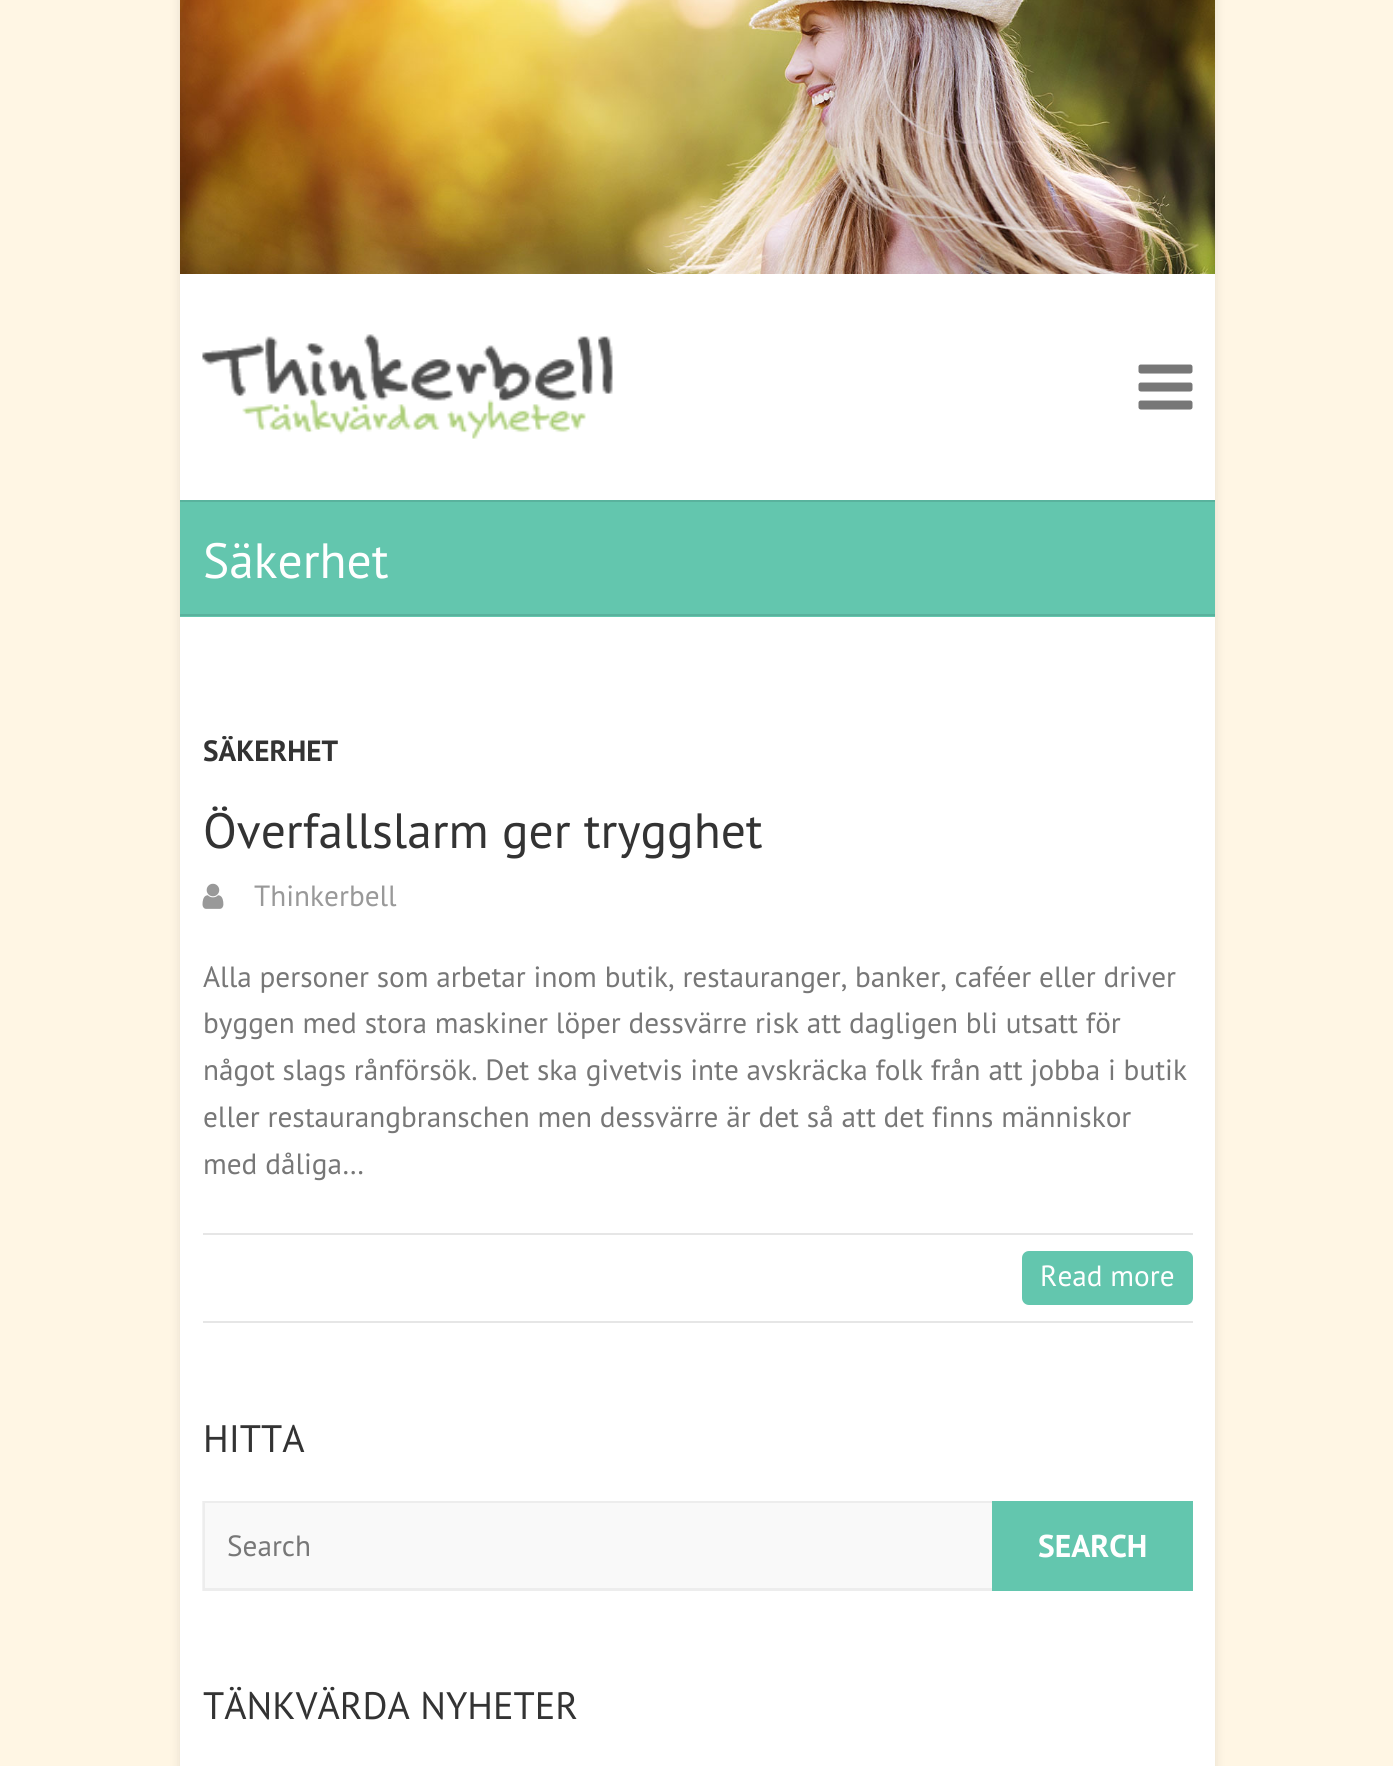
#include <cairo.h>
#include <math.h>
#include <stddef.h>


static void rgb(cairo_t *cr, int r, int g, int b)
{
	cairo_set_source_rgb(cr, r / 255.0, g / 255.0, b / 255.0);
}

static void face(cairo_t *cr, const char *family, double size, int italic, int bold)
{
	cairo_select_font_face(cr, family, italic ? CAIRO_FONT_SLANT_ITALIC : CAIRO_FONT_SLANT_NORMAL,
		bold ? CAIRO_FONT_WEIGHT_BOLD : CAIRO_FONT_WEIGHT_NORMAL);
	cairo_set_font_size(cr, size);
}

static void label(cairo_t *cr, double x, double y, const char *s)
{
	cairo_move_to(cr, x, y);
	cairo_show_text(cr, s);
}

static void rect(cairo_t *cr, double x, double y, double w, double h)
{
	cairo_rectangle(cr, x, y, w, h);
	cairo_fill(cr);
}

static void rrect(cairo_t *cr, double x, double y, double w, double h, double r)
{
	cairo_new_sub_path(cr);
	cairo_arc(cr, x + w - r, y + h - r, r, 0, M_PI / 2);
	cairo_arc(cr, x + r, y + h - r, r, M_PI / 2, M_PI);
	cairo_arc(cr, x + r, y + r, r, M_PI, 1.5 * M_PI);
	cairo_arc(cr, x + w - r, y + r, r, 1.5 * M_PI, 2 * M_PI);
	cairo_close_path(cr);
}

static void soft_shadow(cairo_t *cr, double x, double y, double w, double h, double r, double blur, double alpha)
{
	cairo_push_group_with_content(cr, CAIRO_CONTENT_ALPHA);
	cairo_set_operator(cr, CAIRO_OPERATOR_SOURCE);
	for (int i = 15; i >= -15 && fmin(w, h) + blur * i / 3 > 0; i -= 2) {
		double e = blur * i / 6;
		cairo_set_source_rgba(cr, 0, 0, 0, alpha * erfc((i - 1) / 8.5) / 2);
		rrect(cr, x - e, y - e, w + 2 * e, h + 2 * e, fmax(0, fmin(r + e + blur * .6, fmin(w, h) / 2 + e)));
		cairo_fill(cr);
	}
	cairo_pattern_t *soft = cairo_pop_group(cr);
	cairo_mask(cr, soft);
	cairo_pattern_destroy(soft);
}

static void image(cairo_t *cr, const char *path, double x, double y, double w, double h)
{
	cairo_surface_t *image = cairo_image_surface_create_from_png(path);
	cairo_save(cr);
	cairo_set_source_surface(cr, image, x, y);
	cairo_rectangle(cr, x, y, w, h);
	cairo_fill(cr);
	cairo_restore(cr);
	cairo_surface_destroy(image);
}

static void draw(cairo_t *cr) {
	rgb(cr, 255, 246, 228);
	cairo_paint(cr);
	rgb(cr, 0, 0, 0);
	soft_shadow(cr, 180, -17, 1035, 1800, 0, 5.5, 0.1);
	rgb(cr, 255, 255, 255);
	rect(cr, 180, 274, 1035, 1492);
	image(cr, "image0.png", 180, 0, 1035, 274);
	image(cr, "image1.png", 202, 334, 411, 105);
	image(cr, "image2.png", 1138, 364, 55, 46);
	rgb(cr, 99, 198, 174);
	rect(cr, 180, 502, 1035, 115);
	rgb(cr, 89, 178, 157);
	rect(cr, 180, 500, 1035, 2);
	rect(cr, 180, 614, 1035, 2);
	face(cr, "PT Sans", 49.5, 0, 0);
	rgb(cr, 255, 255, 255);
	label(cr, 203, 578, "Säkerhet");
	face(cr, "PT Sans", 29.25, 0, 1);
	rgb(cr, 51, 51, 51);
	label(cr, 203, 761, "SÄKERHET");
	face(cr, "PT Sans", 49.5, 0, 0);
	label(cr, 203, 848, "Överfallslarm ger trygghet");
	image(cr, "image3.png", 202, 883, 22, 26);
	face(cr, "PT Sans", 29.25, 0, 0);
	rgb(cr, 153, 153, 153);
	label(cr, 254, 906, "Thinkerbell");
	rgb(cr, 119, 119, 119);
	label(cr, 203, 987, "Alla personer som arbetar inom butik, restauranger, banker, caféer eller driver");
	label(cr, 203, 1033, "byggen med stora maskiner löper dessvärre risk att dagligen bli utsatt för");
	label(cr, 203, 1080, "något slags rånförsök. Det ska givetvis inte avskräcka folk från att jobba i butik");
	label(cr, 203, 1127, "eller restaurangbranschen men dessvärre är det så att det finns människor");
	label(cr, 203, 1174, "med dåliga…");
	rgb(cr, 230, 230, 230);
	rect(cr, 203, 1233, 990, 2);
	rect(cr, 203, 1321, 990, 2);
	rgb(cr, 99, 198, 174);
	rrect(cr, 1022, 1251, 171, 54, 7);
	cairo_fill(cr);
	rgb(cr, 255, 255, 255);
	label(cr, 1040, 1286, "Read more");
	face(cr, "PT Sans", 38.25, 0, 0);
	rgb(cr, 51, 51, 51);
	label(cr, 203, 1452, "HITTA");
	rgb(cr, 249, 249, 249);
	rect(cr, 203, 1501, 789, 90);
	rgb(cr, 237, 237, 237);
	cairo_new_path(cr);
	cairo_move_to(cr, 202, 1501);
	cairo_line_to(cr, 992, 1501);
	cairo_line_to(cr, 992, 1503);
	cairo_line_to(cr, 205, 1503);
	cairo_close_path(cr);
	cairo_fill(cr);
	cairo_set_source_rgba(cr, 0, 0, 0, 0.05);
	cairo_new_path(cr);
	cairo_move_to(cr, 992, 1591);
	cairo_line_to(cr, 202, 1591);
	cairo_line_to(cr, 205, 1588);
	cairo_line_to(cr, 992, 1588);
	cairo_close_path(cr);
	cairo_fill(cr);
	cairo_new_path(cr);
	cairo_move_to(cr, 202, 1591);
	cairo_line_to(cr, 202, 1501);
	cairo_line_to(cr, 205, 1503);
	cairo_line_to(cr, 205, 1588);
	cairo_close_path(cr);
	cairo_fill(cr);
	face(cr, "PT Sans", 29.25, 0, 0);
	rgb(cr, 119, 119, 119);
	label(cr, 227, 1556, "Search");
	rgb(cr, 99, 198, 174);
	rect(cr, 992, 1501, 201, 90);
	face(cr, "PT Sans", 31.5, 0, 1);
	rgb(cr, 255, 255, 255);
	label(cr, 1038, 1557, "SEARCH");
	face(cr, "PT Sans", 38.25, 0, 0);
	rgb(cr, 51, 51, 51);
	label(cr, 203, 1719, "TÄNKVÄRDA NYHETER");
}

int main(void) {
	cairo_surface_t *surface = cairo_image_surface_create(CAIRO_FORMAT_RGB24, 1393, 1766);
	cairo_t *cr = cairo_create(surface);
	cairo_font_options_t *options = cairo_font_options_create();
	cairo_font_options_set_hint_metrics(options, CAIRO_HINT_METRICS_OFF);
	cairo_font_options_set_hint_style(options, CAIRO_HINT_STYLE_NONE);
	cairo_set_font_options(cr, options);
	cairo_set_miter_limit(cr, 4);
	draw(cr);
	cairo_surface_write_to_png(surface, "render.png");
	cairo_font_options_destroy(options);
	cairo_destroy(cr);
	cairo_surface_destroy(surface);
	return 0;
}
